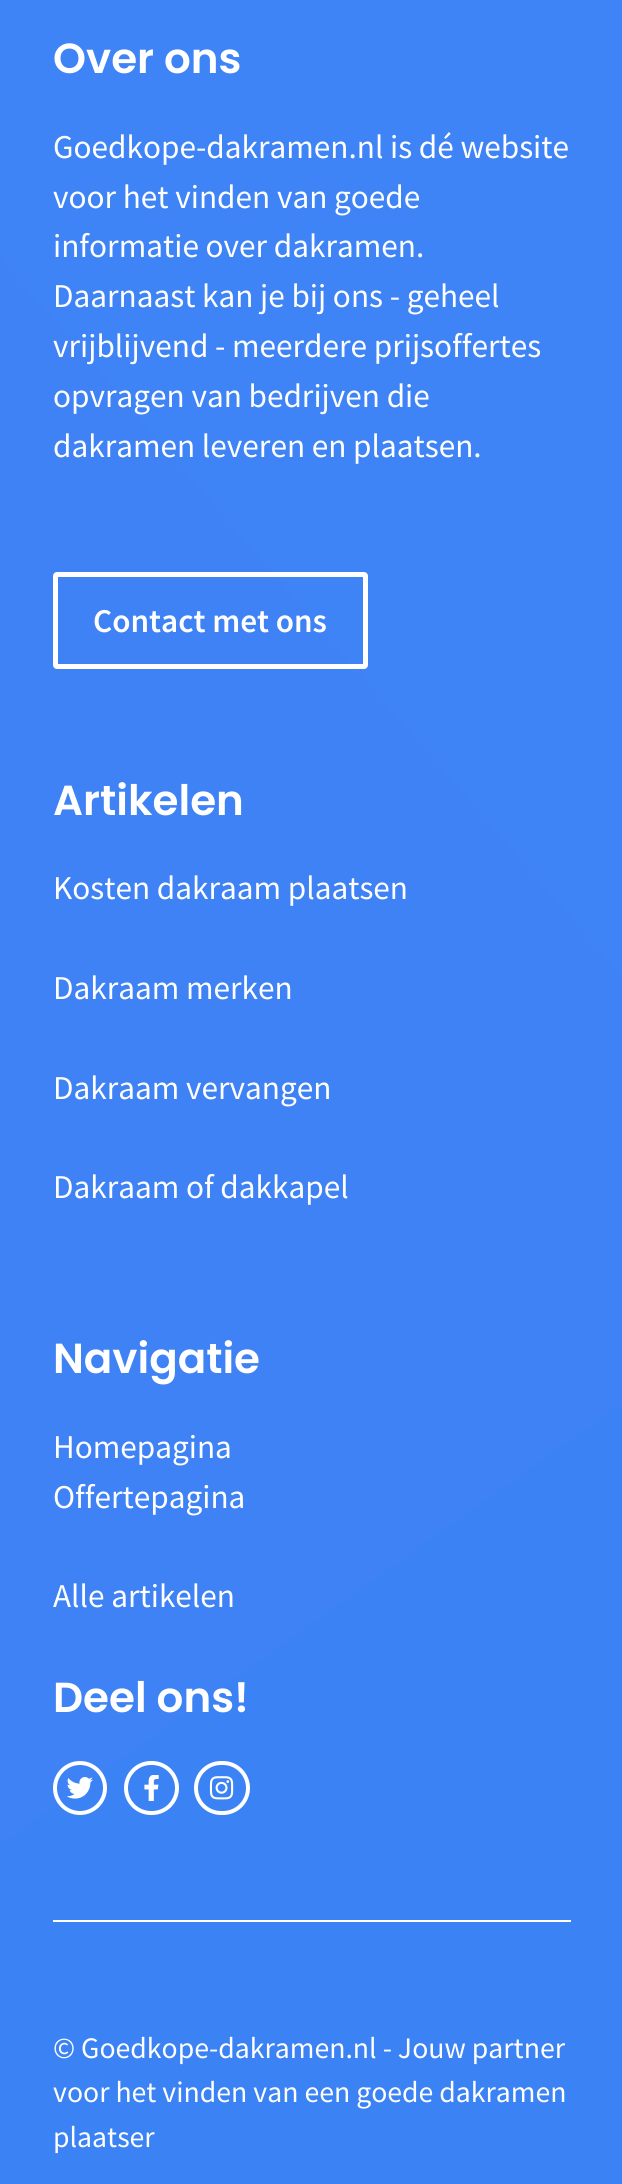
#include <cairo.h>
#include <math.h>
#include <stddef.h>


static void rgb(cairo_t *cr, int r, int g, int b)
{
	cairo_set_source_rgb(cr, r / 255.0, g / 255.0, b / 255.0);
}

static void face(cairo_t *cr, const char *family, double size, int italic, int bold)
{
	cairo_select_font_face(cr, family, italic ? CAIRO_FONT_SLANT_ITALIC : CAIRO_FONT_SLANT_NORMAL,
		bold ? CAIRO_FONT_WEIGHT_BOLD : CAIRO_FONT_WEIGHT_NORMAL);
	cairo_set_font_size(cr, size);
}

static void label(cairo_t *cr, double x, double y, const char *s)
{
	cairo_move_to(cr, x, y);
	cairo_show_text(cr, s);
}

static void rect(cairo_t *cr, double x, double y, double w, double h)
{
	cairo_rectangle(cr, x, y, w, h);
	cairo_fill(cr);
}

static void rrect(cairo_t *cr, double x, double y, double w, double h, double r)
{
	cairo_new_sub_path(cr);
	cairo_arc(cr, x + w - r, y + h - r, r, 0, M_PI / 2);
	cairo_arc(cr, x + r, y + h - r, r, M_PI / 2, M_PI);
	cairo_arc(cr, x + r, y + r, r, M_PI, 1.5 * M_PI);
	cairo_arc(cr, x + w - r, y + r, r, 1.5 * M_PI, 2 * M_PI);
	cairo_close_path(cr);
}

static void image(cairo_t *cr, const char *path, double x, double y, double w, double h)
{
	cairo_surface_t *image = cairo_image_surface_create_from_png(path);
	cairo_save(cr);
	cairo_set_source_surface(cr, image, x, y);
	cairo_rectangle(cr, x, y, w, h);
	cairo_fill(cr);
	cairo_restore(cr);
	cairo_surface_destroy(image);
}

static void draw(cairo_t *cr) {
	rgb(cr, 59, 130, 245);
	cairo_paint(cr);
	rgb(cr, 62, 130, 245);
	cairo_new_path(cr);
	cairo_move_to(cr, -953, -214);
	cairo_line_to(cr, -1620, 1447);
	cairo_line_to(cr, -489, 1974);
	cairo_curve_to(cr, -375, 2027, -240, 2015, -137, 1942);
	cairo_line_to(cr, 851, 1241);
	cairo_line_to(cr, -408, -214);
	cairo_close_path(cr);
	cairo_fill(cr);
	rgb(cr, 63, 132, 246);
	cairo_new_path(cr);
	cairo_move_to(cr, -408, -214);
	cairo_line_to(cr, 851, 1241);
	cairo_line_to(cr, 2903, -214);
	cairo_close_path(cr);
	cairo_fill(cr);
	face(cr, "Poppins SemiBold", 42, 0, 0);
	rgb(cr, 255, 255, 255);
	label(cr, 53, 73, "Over ons");
	face(cr, "Source Sans Pro", 33.25, 0, 0);
	label(cr, 53, 158, "Goedkope-dakramen.nl is dé website");
	label(cr, 53, 208, "voor het vinden van goede");
	label(cr, 53, 257, "informatie over dakramen.");
	label(cr, 53, 307, "Daarnaast kan je bij ons - geheel");
	label(cr, 53, 357, "vrijblijvend - meerdere prijsoffertes");
	label(cr, 53, 407, "opvragen van bedrijven die");
	label(cr, 53, 457, "dakramen leveren en plaatsen.");
	rrect(cr, 55.5, 574.5, 310, 92, 1.5);
	cairo_set_line_width(cr, 5);
	cairo_stroke(cr);
	face(cr, "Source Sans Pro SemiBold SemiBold", 33.25, 0, 0);
	label(cr, 93, 632, "Contact met ons");
	face(cr, "Poppins SemiBold", 42, 0, 0);
	label(cr, 53, 815, "Artikelen");
	face(cr, "Source Sans Pro", 33.25, 0, 0);
	label(cr, 53, 899, "Kosten dakraam plaatsen");
	label(cr, 53, 999, "Dakraam merken");
	label(cr, 53, 1099, "Dakraam vervangen");
	label(cr, 53, 1198, "Dakraam of dakkapel");
	face(cr, "Poppins SemiBold", 42, 0, 0);
	label(cr, 53, 1373, "Navigatie");
	face(cr, "Source Sans Pro", 33.25, 0, 0);
	label(cr, 53, 1458, "Homepagina");
	label(cr, 53, 1508, "Offertepagina");
	label(cr, 53, 1607, "Alle artikelen");
	face(cr, "Poppins SemiBold", 42, 0, 0);
	label(cr, 53, 1712, "Deel ons!");
	cairo_new_path(cr);
	cairo_arc(cr, 80, 1788, 25, 0, 2 * M_PI);
	cairo_set_line_width(cr, 4);
	cairo_stroke(cr);
	image(cr, "image0.png", 67, 1777, 26, 22);
	rrect(cr, 126, 1763, 51, 50, 25);
	cairo_stroke(cr);
	image(cr, "image1.png", 144, 1775, 15, 26);
	rrect(cr, 196, 1763, 52, 50, 25);
	cairo_stroke(cr);
	image(cr, "image2.png", 209, 1776, 25, 24);
	rect(cr, 53, 1920, 518, 2);
	face(cr, "Source Sans Pro", 29.75, 0, 0);
	label(cr, 53, 2058, "© Goedkope-dakramen.nl - Jouw partner");
	label(cr, 53, 2102, "voor het vinden van een goede dakramen");
	label(cr, 53, 2147, "plaatser");
}

int main(void) {
	cairo_surface_t *surface = cairo_image_surface_create(CAIRO_FORMAT_RGB24, 622, 2184);
	cairo_t *cr = cairo_create(surface);
	cairo_font_options_t *options = cairo_font_options_create();
	cairo_font_options_set_hint_metrics(options, CAIRO_HINT_METRICS_OFF);
	cairo_font_options_set_hint_style(options, CAIRO_HINT_STYLE_NONE);
	cairo_set_font_options(cr, options);
	cairo_set_miter_limit(cr, 4);
	draw(cr);
	cairo_surface_write_to_png(surface, "render.png");
	cairo_font_options_destroy(options);
	cairo_destroy(cr);
	cairo_surface_destroy(surface);
	return 0;
}
